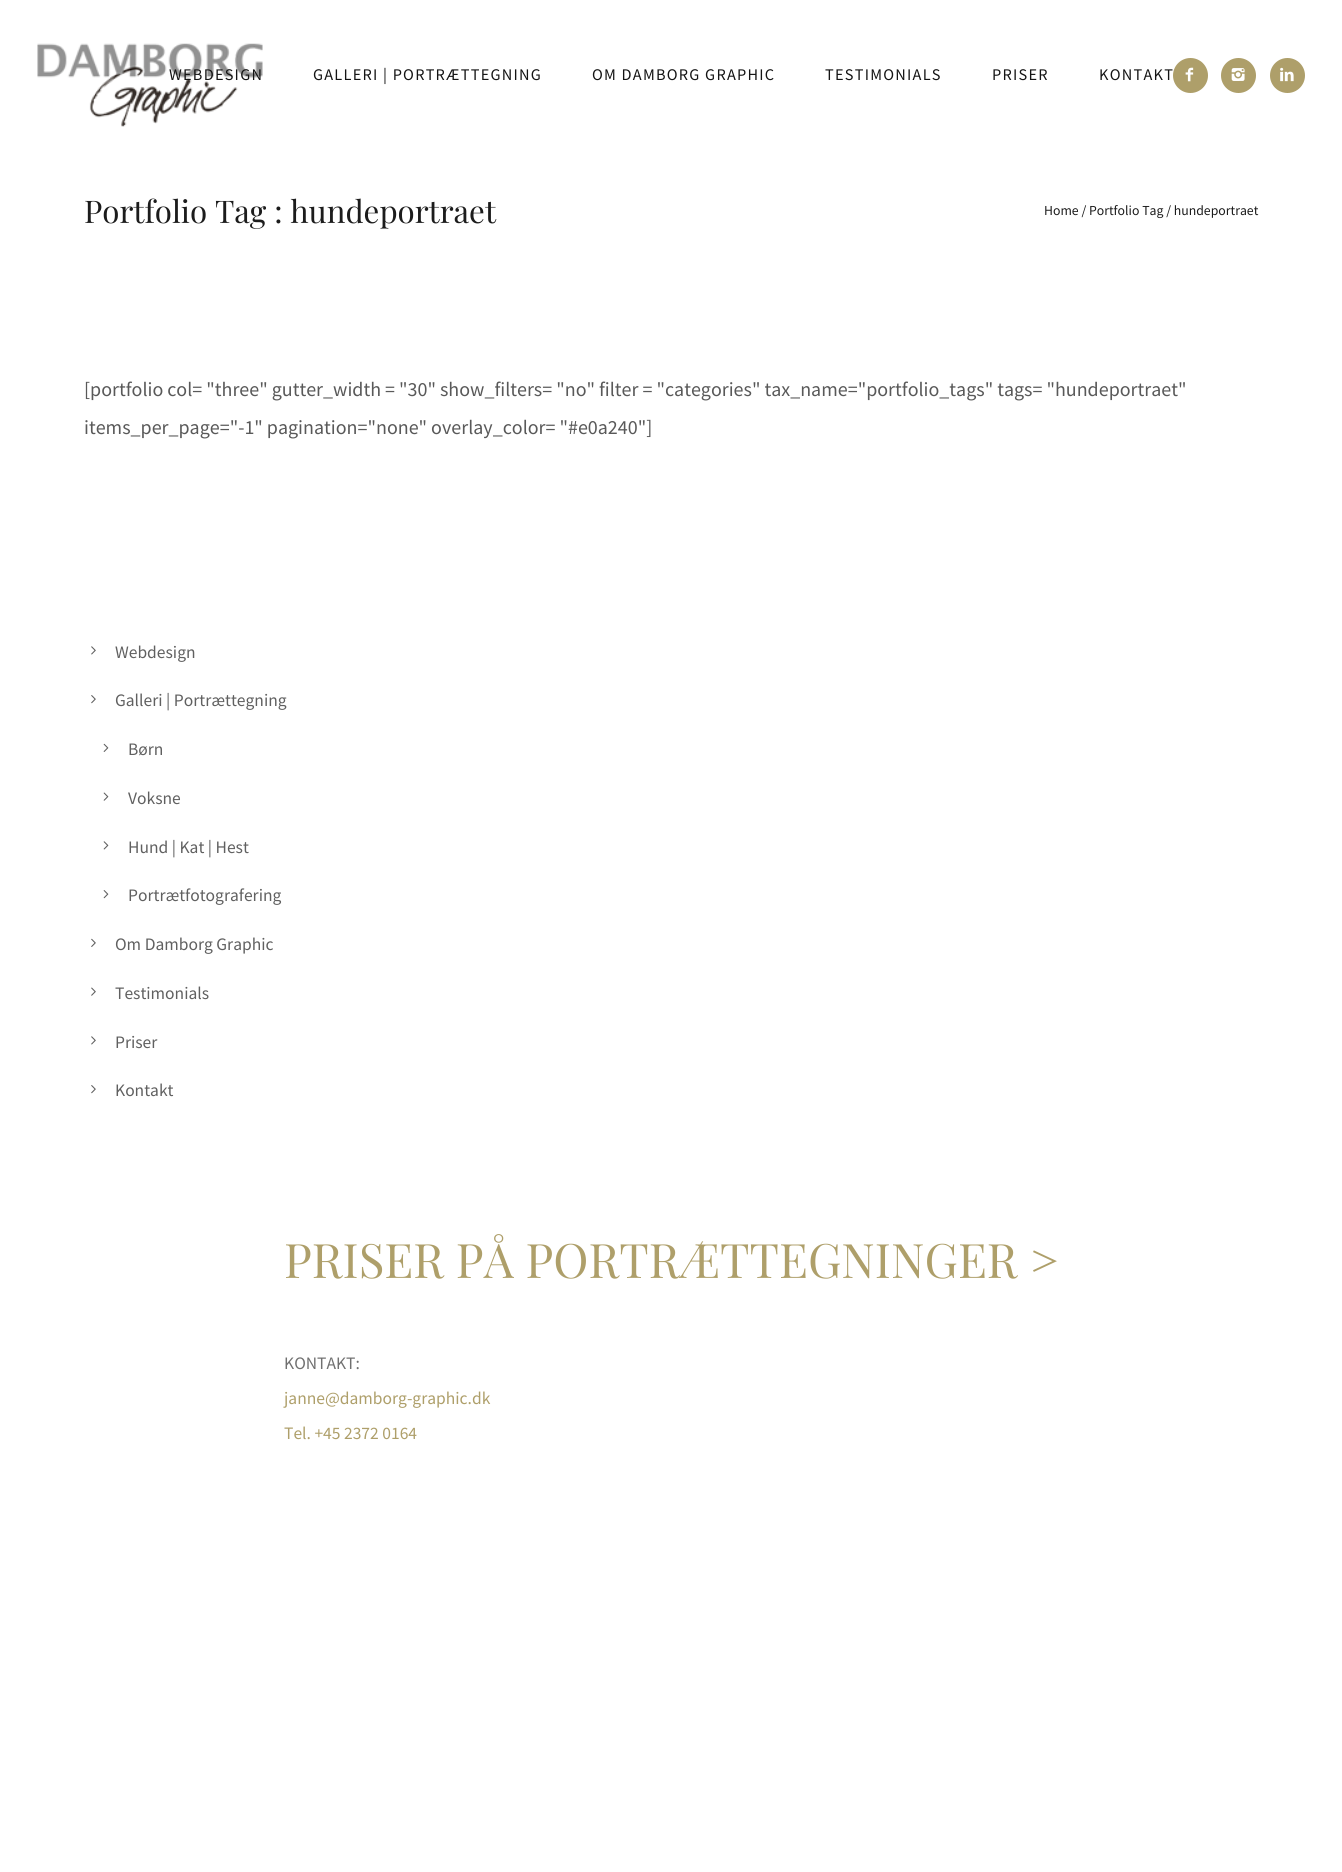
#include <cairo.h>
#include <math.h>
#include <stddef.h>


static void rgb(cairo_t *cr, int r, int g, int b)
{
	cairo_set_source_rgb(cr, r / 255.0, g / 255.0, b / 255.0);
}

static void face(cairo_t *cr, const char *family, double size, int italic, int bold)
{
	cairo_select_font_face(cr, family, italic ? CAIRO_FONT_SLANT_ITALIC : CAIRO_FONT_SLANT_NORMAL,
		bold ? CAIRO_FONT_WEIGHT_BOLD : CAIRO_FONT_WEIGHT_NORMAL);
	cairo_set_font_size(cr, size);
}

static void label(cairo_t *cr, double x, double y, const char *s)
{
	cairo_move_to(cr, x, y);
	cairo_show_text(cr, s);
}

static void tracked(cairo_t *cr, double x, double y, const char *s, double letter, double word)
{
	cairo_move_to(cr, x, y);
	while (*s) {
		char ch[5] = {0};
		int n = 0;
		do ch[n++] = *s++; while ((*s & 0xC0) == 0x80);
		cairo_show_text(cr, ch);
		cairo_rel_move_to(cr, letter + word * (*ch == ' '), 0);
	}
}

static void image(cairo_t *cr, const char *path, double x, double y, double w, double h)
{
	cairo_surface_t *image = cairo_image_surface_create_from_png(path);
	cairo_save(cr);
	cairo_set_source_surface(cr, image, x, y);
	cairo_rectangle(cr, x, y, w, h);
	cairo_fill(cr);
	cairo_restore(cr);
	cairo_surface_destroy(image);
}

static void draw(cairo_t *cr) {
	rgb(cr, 255, 255, 255);
	cairo_paint(cr);
	image(cr, "image0.png", 37, 43, 226, 84);
	face(cr, "Source Sans Pro", 16.25, 0, 0);
	rgb(cr, 20, 20, 20);
	tracked(cr, 169, 80, "WEBDESIGN", 1.25, 0);
	tracked(cr, 313, 80, "GALLERI | PORTRÆTTEGNING", 1.25, 0);
	tracked(cr, 592, 80, "OM DAMBORG GRAPHIC", 1.25, 0);
	tracked(cr, 825, 80, "TESTIMONIALS", 1.25, 0);
	tracked(cr, 992, 80, "PRISER", 1.25, 0);
	tracked(cr, 1099, 80, "KONTAKT", 1.25, 0);
	rgb(cr, 174, 159, 106);
	cairo_new_path(cr);
	cairo_arc(cr, 1190.5, 75.5, 17.5, 0, 2 * M_PI);
	cairo_fill(cr);
	image(cr, "image1.png", 1185, 67, 9, 15);
	cairo_arc(cr, 1238.5, 75.5, 17.5, 0, 2 * M_PI);
	cairo_fill(cr);
	image(cr, "image2.png", 1231, 68, 14, 13);
	cairo_arc(cr, 1287.5, 75.5, 17.5, 0, 2 * M_PI);
	cairo_fill(cr);
	image(cr, "image3.png", 1280, 67, 14, 15);
	face(cr, "Playfair Display", 31.25, 0, 0);
	rgb(cr, 28, 28, 28);
	label(cr, 84, 223, "Portfolio Tag : hundeportraet");
	face(cr, "Source Sans Pro", 13.75, 0, 0);
	label(cr, 1044, 215, "Home / Portfolio Tag / hundeportraet");
	face(cr, "Source Sans Pro", 20, 0, 0);
	rgb(cr, 89, 89, 89);
	label(cr, 84, 396, "[portfolio col= \"three\" gutter_width = \"30\" show_filters= \"no\" filter = \"categories\" tax_name=\"portfolio_tags\" tags= \"hundeportraet\"");
	label(cr, 84, 434, "items_per_page=\"-1\" pagination=\"none\" overlay_color= \"#e0a240\"]");
	image(cr, "image4.png", 91, 646, 5, 9);
	face(cr, "Source Sans Pro", 17.5, 0, 0);
	rgb(cr, 96, 96, 96);
	label(cr, 115, 658, "Webdesign");
	image(cr, "image5.png", 91, 695, 5, 9);
	label(cr, 115, 706, "Galleri | Portrættegning");
	image(cr, "image6.png", 103, 743, 6, 9);
	label(cr, 128, 755, "Børn");
	image(cr, "image7.png", 103, 792, 6, 9);
	label(cr, 128, 804, "Voksne");
	image(cr, "image8.png", 103, 841, 6, 9);
	label(cr, 128, 853, "Hund | Kat | Hest");
	image(cr, "image9.png", 103, 890, 6, 9);
	label(cr, 128, 901, "Portrætfotografering");
	image(cr, "image10.png", 91, 938, 5, 9);
	label(cr, 115, 950, "Om Damborg Graphic");
	image(cr, "image11.png", 91, 987, 5, 9);
	label(cr, 115, 999, "Testimonials");
	image(cr, "image4.png", 91, 1036, 5, 9);
	label(cr, 115, 1048, "Priser");
	image(cr, "image5.png", 91, 1085, 5, 9);
	label(cr, 115, 1096, "Kontakt");
	face(cr, "Playfair Display", 47.5, 0, 0);
	rgb(cr, 174, 159, 106);
	label(cr, 284, 1278, "PRISER PÅ PORTRÆTTEGNINGER >");
	face(cr, "Source Sans Pro", 17.5, 0, 0);
	rgb(cr, 112, 112, 112);
	label(cr, 284, 1369, "KONTAKT:");
	rgb(cr, 174, 159, 106);
	label(cr, 284, 1404, "janne@damborg-graphic.dk");
	label(cr, 284, 1439, "Tel. +45 2372 0164");
}

int main(void) {
	cairo_surface_t *surface = cairo_image_surface_create(CAIRO_FORMAT_RGB24, 1342, 1872);
	cairo_t *cr = cairo_create(surface);
	cairo_font_options_t *options = cairo_font_options_create();
	cairo_font_options_set_hint_metrics(options, CAIRO_HINT_METRICS_OFF);
	cairo_font_options_set_hint_style(options, CAIRO_HINT_STYLE_NONE);
	cairo_set_font_options(cr, options);
	cairo_set_miter_limit(cr, 4);
	draw(cr);
	cairo_surface_write_to_png(surface, "render.png");
	cairo_font_options_destroy(options);
	cairo_destroy(cr);
	cairo_surface_destroy(surface);
	return 0;
}
